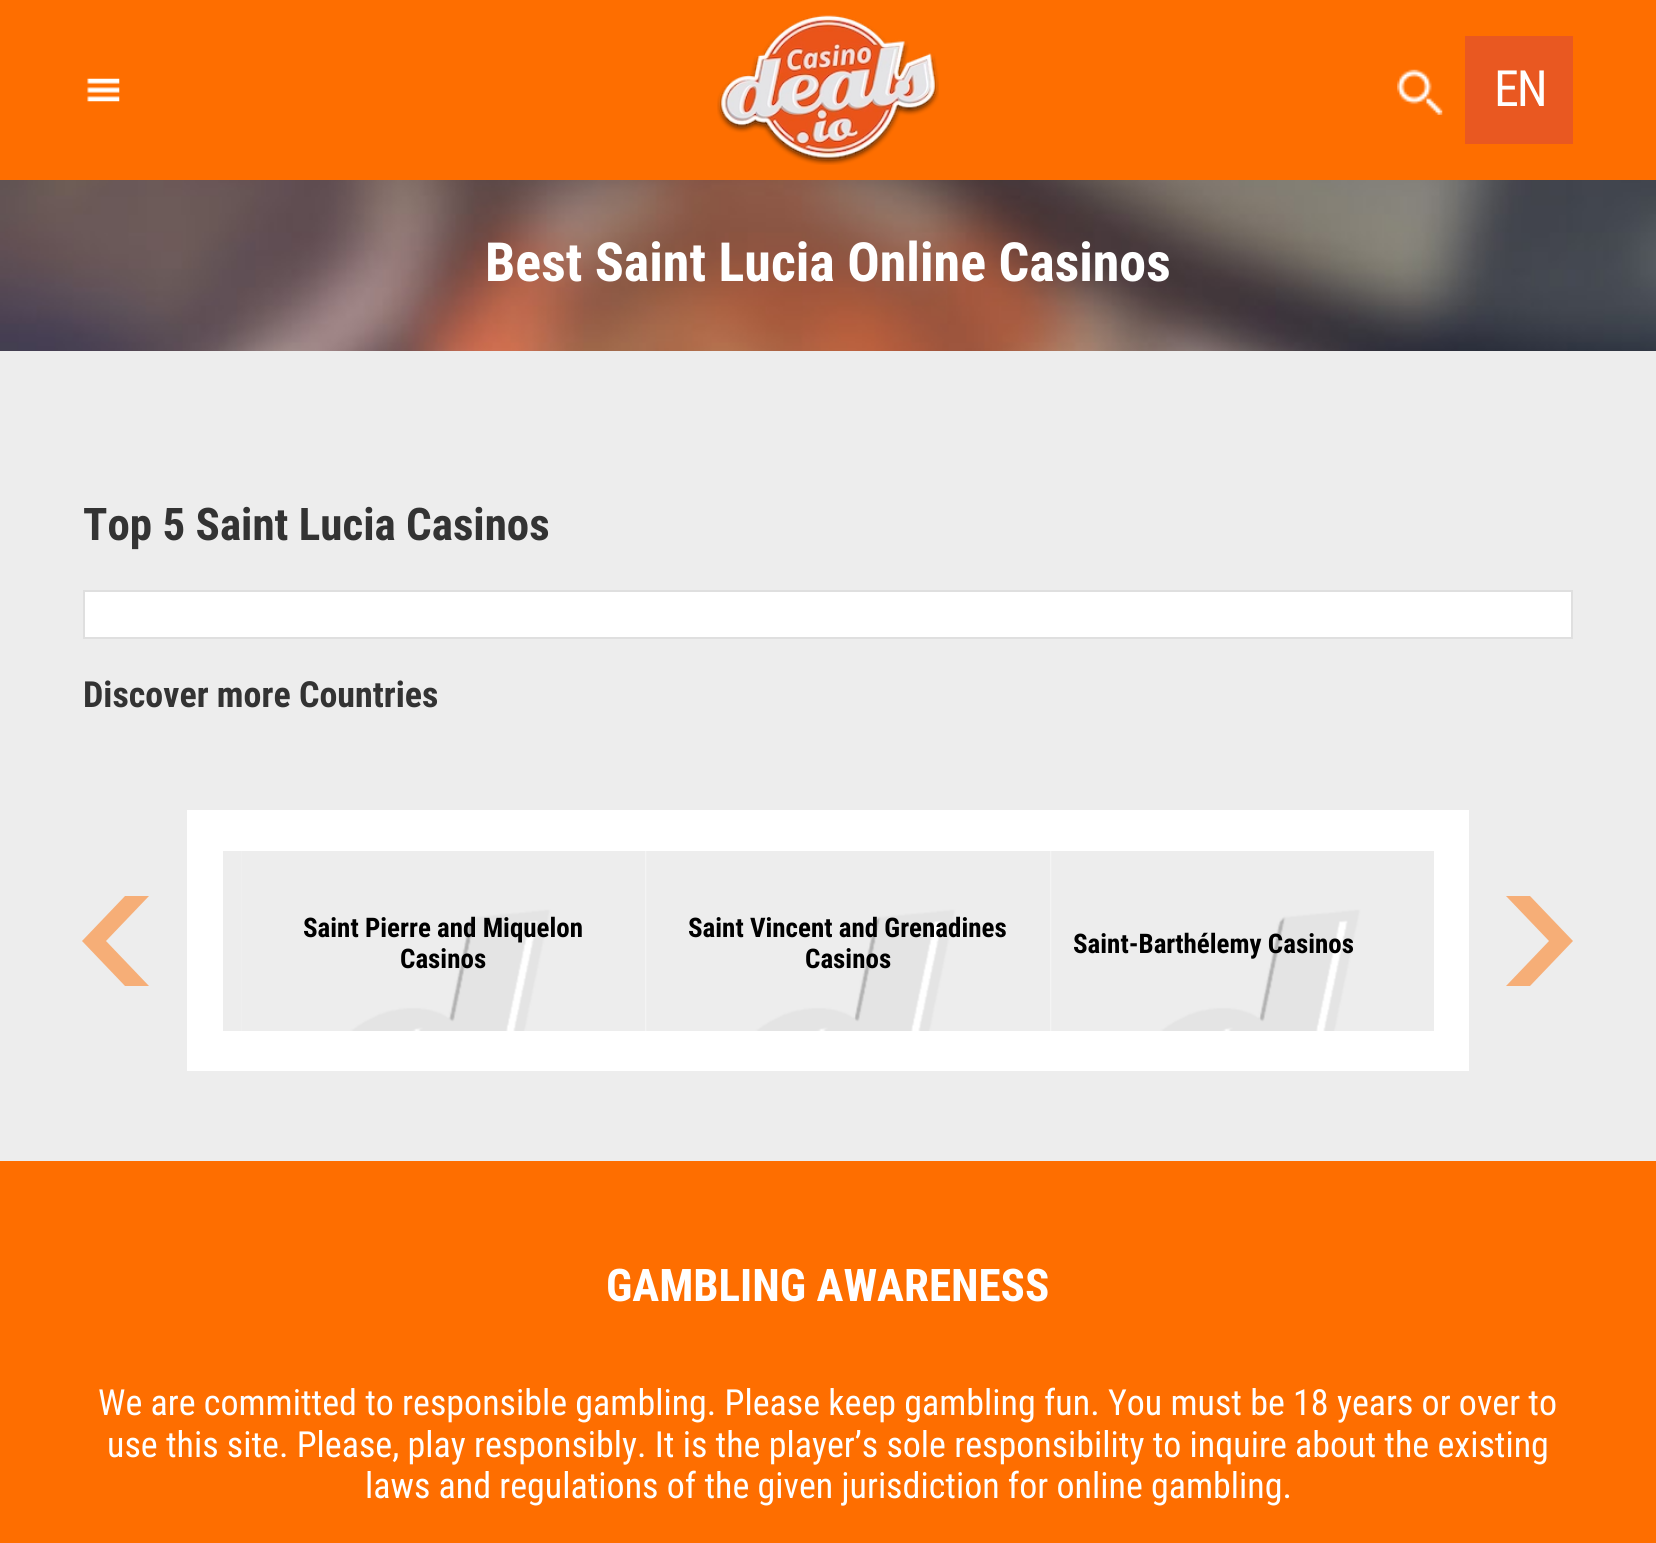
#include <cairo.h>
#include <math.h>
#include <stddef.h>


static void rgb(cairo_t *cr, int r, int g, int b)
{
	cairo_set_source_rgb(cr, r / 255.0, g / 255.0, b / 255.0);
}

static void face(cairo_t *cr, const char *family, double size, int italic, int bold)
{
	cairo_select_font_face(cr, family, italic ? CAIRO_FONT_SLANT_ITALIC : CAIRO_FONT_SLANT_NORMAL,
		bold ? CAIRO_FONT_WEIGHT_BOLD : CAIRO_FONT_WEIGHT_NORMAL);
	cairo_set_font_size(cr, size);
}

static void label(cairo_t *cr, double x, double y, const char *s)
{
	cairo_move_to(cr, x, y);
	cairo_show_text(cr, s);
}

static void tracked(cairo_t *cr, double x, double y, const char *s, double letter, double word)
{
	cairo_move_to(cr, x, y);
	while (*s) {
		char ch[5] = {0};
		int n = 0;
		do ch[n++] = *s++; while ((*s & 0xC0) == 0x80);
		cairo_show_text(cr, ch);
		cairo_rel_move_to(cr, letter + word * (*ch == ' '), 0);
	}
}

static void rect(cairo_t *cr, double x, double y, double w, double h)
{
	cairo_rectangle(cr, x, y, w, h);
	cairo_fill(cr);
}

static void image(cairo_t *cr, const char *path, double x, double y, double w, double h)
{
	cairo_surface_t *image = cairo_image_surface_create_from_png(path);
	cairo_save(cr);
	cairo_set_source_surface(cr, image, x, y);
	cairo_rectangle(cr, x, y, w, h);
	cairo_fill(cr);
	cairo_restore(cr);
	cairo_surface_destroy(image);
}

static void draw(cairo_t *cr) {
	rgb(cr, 237, 237, 237);
	cairo_paint(cr);
	rgb(cr, 254, 110, 0);
	rect(cr, 0, 0, 1656, 180);
	image(cr, "image0.png", 87, 78, 33, 24);
	image(cr, "image1.png", 717, 15, 222, 150);
	image(cr, "image2.png", 1397, 69, 46, 46);
	rgb(cr, 233, 88, 33);
	rect(cr, 1465, 36, 108, 108);
	face(cr, "Roboto Condensed", 50, 0, 0);
	rgb(cr, 255, 255, 255);
	tracked(cr, 1494, 106, "EN", -2, 0);
	image(cr, "image3.png", 0, 180, 1656, 171);
	face(cr, "Roboto Condensed", 54, 0, 1);
	label(cr, 485, 281, "Best Saint Lucia Online Casinos");
	face(cr, "Roboto Condensed", 45, 0, 1);
	rgb(cr, 51, 51, 51);
	label(cr, 83, 540, "Top 5 Saint Lucia Casinos");
	rgb(cr, 255, 255, 255);
	cairo_rectangle(cr, 84, 591, 1488, 47);
	cairo_fill_preserve(cr);
	rgb(cr, 223, 223, 223);
	cairo_stroke(cr);
	face(cr, "Roboto Condensed", 36, 0, 1);
	rgb(cr, 51, 51, 51);
	label(cr, 83, 707, "Discover more Countries");
	rgb(cr, 246, 174, 119);
	cairo_set_fill_rule(cr, CAIRO_FILL_RULE_EVEN_ODD);
	cairo_new_path(cr);
	cairo_move_to(cr, 149, 896);
	cairo_line_to(cr, 106, 941);
	cairo_line_to(cr, 149, 986);
	cairo_line_to(cr, 125, 986);
	cairo_line_to(cr, 82, 941);
	cairo_line_to(cr, 125, 896);
	cairo_close_path(cr);
	cairo_fill(cr);
	cairo_new_path(cr);
	cairo_move_to(cr, 1506, 986);
	cairo_line_to(cr, 1549, 941);
	cairo_line_to(cr, 1506, 896);
	cairo_line_to(cr, 1530, 896);
	cairo_line_to(cr, 1573, 941);
	cairo_line_to(cr, 1530, 986);
	cairo_close_path(cr);
	cairo_fill(cr);
	rgb(cr, 255, 255, 255);
	rect(cr, 187, 810, 1282, 261);
	rgb(cr, 237, 237, 237);
	rect(cr, 223, 851, 18, 180);
	image(cr, "image4.png", 241, 851, 405, 180);
	face(cr, "Roboto Condensed", 27, 0, 1);
	rgb(cr, 0, 0, 0);
	label(cr, 303, 937, "Saint Pierre and Miquelon");
	label(cr, 400, 968, "Casinos");
	image(cr, "image5.png", 646, 851, 405, 180);
	label(cr, 688, 937, "Saint Vincent and Grenadines");
	label(cr, 805, 968, "Casinos");
	image(cr, "image6.png", 1051, 851, 383, 180);
	label(cr, 1073, 953, "Saint-Barthélemy Casinos");
	rgb(cr, 254, 110, 0);
	rect(cr, 0, 1161, 1656, 382);
	face(cr, "Roboto Condensed", 45, 0, 1);
	rgb(cr, 255, 255, 255);
	label(cr, 606, 1301, "GAMBLING AWARENESS");
	face(cr, "Roboto Condensed", 36, 0, 0);
	label(cr, 98, 1415, "We are committed to responsible gambling. Please keep gambling fun. You must be 18 years or over to");
	label(cr, 107, 1457, "use this site. Please, play responsibly. It is the player’s sole responsibility to inquire about the existing");
	label(cr, 365, 1498, "laws and regulations of the given jurisdiction for online gambling.");
}

int main(void) {
	cairo_surface_t *surface = cairo_image_surface_create(CAIRO_FORMAT_RGB24, 1656, 1543);
	cairo_t *cr = cairo_create(surface);
	cairo_font_options_t *options = cairo_font_options_create();
	cairo_font_options_set_hint_metrics(options, CAIRO_HINT_METRICS_OFF);
	cairo_font_options_set_hint_style(options, CAIRO_HINT_STYLE_NONE);
	cairo_set_font_options(cr, options);
	cairo_set_miter_limit(cr, 4);
	draw(cr);
	cairo_surface_write_to_png(surface, "render.png");
	cairo_font_options_destroy(options);
	cairo_destroy(cr);
	cairo_surface_destroy(surface);
	return 0;
}
